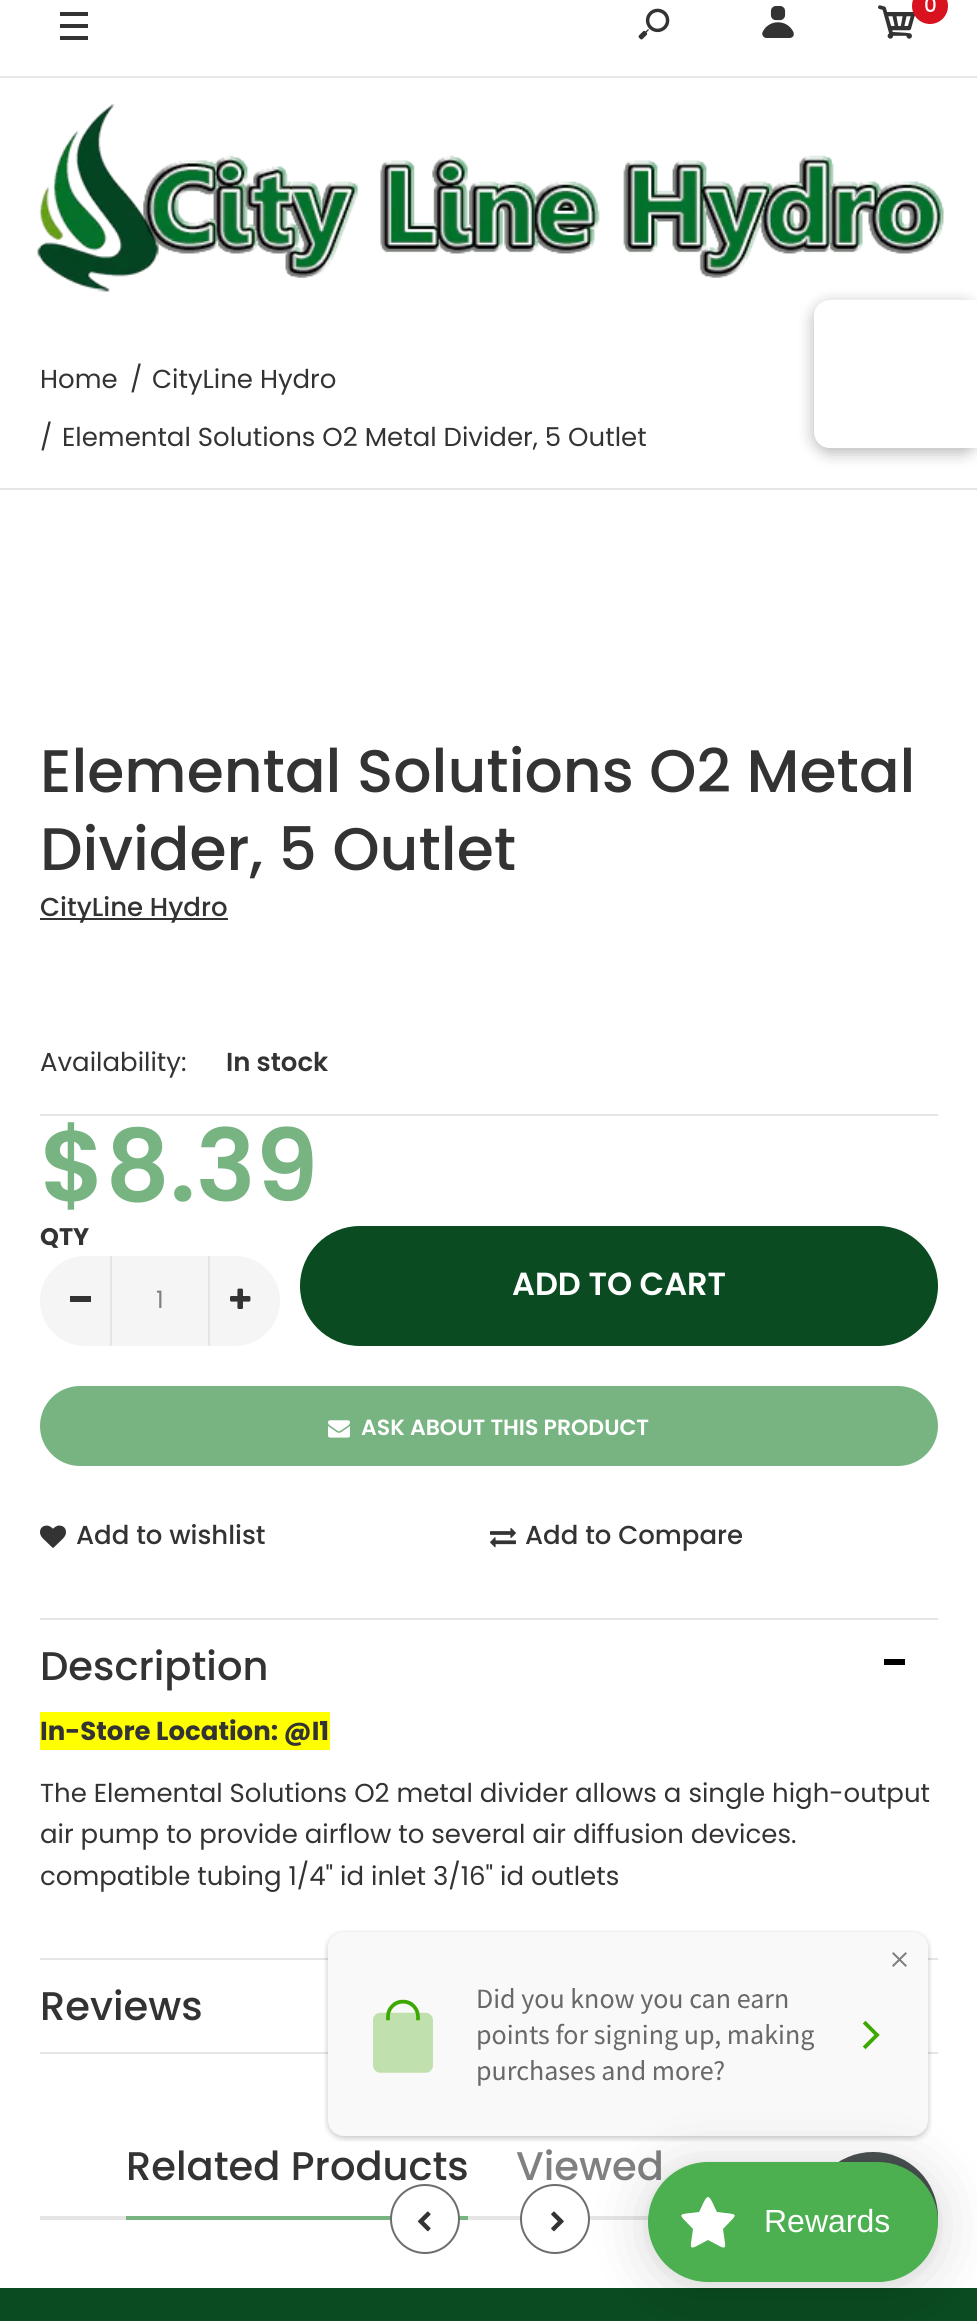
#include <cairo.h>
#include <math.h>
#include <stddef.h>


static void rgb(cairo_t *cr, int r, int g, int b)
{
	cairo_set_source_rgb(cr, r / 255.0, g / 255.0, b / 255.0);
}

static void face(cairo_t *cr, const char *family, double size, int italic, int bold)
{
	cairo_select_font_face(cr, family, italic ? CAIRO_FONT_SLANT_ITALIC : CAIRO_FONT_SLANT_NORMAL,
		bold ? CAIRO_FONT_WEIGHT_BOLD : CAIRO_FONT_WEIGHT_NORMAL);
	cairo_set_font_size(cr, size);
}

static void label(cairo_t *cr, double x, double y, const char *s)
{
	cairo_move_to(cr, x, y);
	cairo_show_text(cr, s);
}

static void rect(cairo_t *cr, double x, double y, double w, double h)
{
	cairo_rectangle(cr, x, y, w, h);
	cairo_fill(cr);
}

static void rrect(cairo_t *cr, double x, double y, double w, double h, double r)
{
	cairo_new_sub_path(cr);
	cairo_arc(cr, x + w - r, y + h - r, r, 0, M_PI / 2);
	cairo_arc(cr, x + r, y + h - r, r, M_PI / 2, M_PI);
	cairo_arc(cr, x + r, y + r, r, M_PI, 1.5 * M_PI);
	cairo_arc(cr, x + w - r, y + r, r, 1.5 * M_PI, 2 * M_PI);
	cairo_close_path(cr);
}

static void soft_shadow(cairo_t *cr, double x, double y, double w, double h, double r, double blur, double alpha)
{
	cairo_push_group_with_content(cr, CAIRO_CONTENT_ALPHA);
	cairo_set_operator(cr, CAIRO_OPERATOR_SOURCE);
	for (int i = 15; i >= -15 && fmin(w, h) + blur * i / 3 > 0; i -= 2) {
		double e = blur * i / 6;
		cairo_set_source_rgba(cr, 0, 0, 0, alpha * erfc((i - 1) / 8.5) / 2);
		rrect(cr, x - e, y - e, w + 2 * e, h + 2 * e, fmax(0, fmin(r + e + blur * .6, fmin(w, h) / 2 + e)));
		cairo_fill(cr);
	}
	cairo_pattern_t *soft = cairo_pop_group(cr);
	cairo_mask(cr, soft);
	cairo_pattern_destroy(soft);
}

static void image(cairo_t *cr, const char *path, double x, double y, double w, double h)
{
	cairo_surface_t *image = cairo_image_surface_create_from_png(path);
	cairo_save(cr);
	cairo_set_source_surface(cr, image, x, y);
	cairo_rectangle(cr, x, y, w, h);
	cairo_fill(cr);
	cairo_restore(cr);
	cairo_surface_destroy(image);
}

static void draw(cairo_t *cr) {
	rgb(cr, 255, 255, 255);
	cairo_paint(cr);
	rgb(cr, 231, 231, 231);
	rect(cr, 0, 76, 977, 2);
	rgb(cr, 51, 51, 51);
	rect(cr, 60, 24, 28, 4);
	rect(cr, 60, 12, 28, 4);
	rect(cr, 60, 36, 28, 4);
	image(cr, "image0.png", 638, 8, 32, 32);
	image(cr, "image1.png", 762, 6, 32, 32);
	image(cr, "image2.png", 878, 5, 37, 34);
	rgb(cr, 217, 18, 31);
	cairo_arc(cr, 930, 6, 18, 0, 2 * M_PI);
	cairo_fill(cr);
	face(cr, "Poppins Medium", 20, 0, 0);
	rgb(cr, 255, 255, 255);
	label(cr, 924, 12, "0");
	image(cr, "image3.png", 37, 104, 907, 188);
	rgb(cr, 229, 229, 229);
	rect(cr, 0, 488, 977, 2);
	face(cr, "Poppins", 26, 0, 0);
	rgb(cr, 51, 51, 51);
	label(cr, 40, 388, "Home");
	label(cr, 130, 388, "/");
	label(cr, 152, 388, "CityLine Hydro");
	label(cr, 40, 446, "/");
	label(cr, 62, 446, "Elemental Solutions O2 Metal Divider, 5 Outlet");
	face(cr, "Poppins Medium", 60, 0, 0);
	label(cr, 40, 792, "Elemental Solutions O2 Metal");
	label(cr, 40, 870, "Divider, 5 Outlet");
	rect(cr, 40, 918, 188, 2);
	face(cr, "Poppins Medium", 26, 0, 0);
	label(cr, 40, 916, "CityLine Hydro");
	rgb(cr, 229, 229, 229);
	rect(cr, 40, 1114, 898, 2);
	face(cr, "Poppins", 26, 0, 0);
	rgb(cr, 51, 51, 51);
	label(cr, 40, 1071, "Availability:");
	face(cr, "Poppins SemiBold", 26, 0, 0);
	label(cr, 226, 1071, "In stock");
	face(cr, "Poppins SemiBold", 100, 0, 0);
	rgb(cr, 119, 180, 130);
	label(cr, 40, 1201, "$8.39");
	face(cr, "Poppins", 24, 0, 1);
	rgb(cr, 51, 51, 51);
	label(cr, 40, 1245, "QTY");
	rgb(cr, 245, 245, 245);
	rrect(cr, 41, 1257, 238, 88, 44);
	cairo_fill_preserve(cr);
	cairo_stroke(cr);
	rgb(cr, 229, 229, 229);
	rect(cr, 110, 1256, 2, 90);
	rgb(cr, 51, 51, 51);
	rect(cr, 70, 1296, 21, 6);
	face(cr, "Poppins", 24, 0, 0);
	rgb(cr, 128, 128, 128);
	label(cr, 156, 1308, "1");
	rgb(cr, 229, 229, 229);
	rect(cr, 208, 1256, 2, 90);
	image(cr, "image4.png", 230, 1288, 21, 21);
	rgb(cr, 10, 75, 33);
	rrect(cr, 300, 1226, 638, 120, 60);
	cairo_fill(cr);
	face(cr, "Poppins SemiBold", 32, 0, 0);
	rgb(cr, 255, 255, 255);
	label(cr, 512, 1295, "ADD TO CART");
	rgb(cr, 119, 180, 130);
	rrect(cr, 40, 1386, 898, 80, 40);
	cairo_fill(cr);
	image(cr, "image5.png", 328, 1420, 22, 18);
	face(cr, "Poppins SemiBold", 22, 0, 0);
	rgb(cr, 255, 255, 255);
	label(cr, 361, 1435, "ASK ABOUT THIS PRODUCT");
	image(cr, "image6.png", 40, 1525, 26, 23);
	face(cr, "Poppins Medium", 26, 0, 0);
	rgb(cr, 51, 51, 51);
	label(cr, 76, 1544, "Add to wishlist");
	image(cr, "image7.png", 490, 1528, 26, 20);
	label(cr, 525, 1544, "Add to Compare");
	rgb(cr, 229, 229, 229);
	rect(cr, 40, 1618, 898, 2);
	face(cr, "Poppins Medium", 40, 0, 0);
	rgb(cr, 51, 51, 51);
	label(cr, 40, 1680, "Description");
	rgb(cr, 0, 0, 0);
	rect(cr, 884, 1659, 21, 6);
	rgb(cr, 255, 255, 0);
	rect(cr, 40, 1712, 290, 38);
	face(cr, "Poppins", 26, 0, 1);
	rgb(cr, 51, 51, 51);
	label(cr, 40, 1740, "In-Store Location: @I1");
	face(cr, "Poppins", 26, 0, 0);
	label(cr, 40, 1802, "The Elemental Solutions O2 metal divider allows a single high-output");
	label(cr, 40, 1843, "air pump to provide airflow to several air diffusion devices.");
	label(cr, 40, 1885, "compatible tubing 1/4\" id inlet 3/16\" id outlets");
	rgb(cr, 229, 229, 229);
	rect(cr, 40, 1958, 898, 2);
	rect(cr, 40, 2052, 898, 2);
	face(cr, "Poppins Medium", 40, 0, 0);
	rgb(cr, 51, 51, 51);
	label(cr, 40, 2020, "Reviews");
	label(cr, 126, 2180, "Related Products");
	rgb(cr, 229, 229, 229);
	rect(cr, 40, 2216, 898, 4);
	rgb(cr, 119, 180, 130);
	rect(cr, 126, 2216, 342, 4);
	rgb(cr, 128, 128, 128);
	label(cr, 516, 2180, "Viewed");
	rgb(cr, 255, 255, 255);
	cairo_new_path(cr);
	cairo_arc(cr, 425, 2219, 34, 0, 2 * M_PI);
	cairo_fill_preserve(cr);
	rgb(cr, 109, 109, 109);
	cairo_stroke(cr);
	image(cr, "image8.png", 417, 2211, 14, 21);
	rgb(cr, 255, 255, 255);
	cairo_arc(cr, 555, 2219, 34, 0, 2 * M_PI);
	cairo_fill_preserve(cr);
	rgb(cr, 109, 109, 109);
	cairo_stroke(cr);
	image(cr, "image9.png", 551, 2211, 13, 21);
	rgb(cr, 10, 75, 33);
	rect(cr, 0, 2288, 977, 33);
	rgb(cr, 0, 0, 0);
	soft_shadow(cr, 814, 304, 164, 148, 16, 8, 0.3);
	rgb(cr, 255, 255, 255);
	cairo_new_path(cr);
	cairo_move_to(cr, 830, 300);
	cairo_line_to(cr, 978, 300);
	cairo_line_to(cr, 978, 448);
	cairo_line_to(cr, 830, 448);
	cairo_curve_to(cr, 821, 448, 814, 441, 814, 432);
	cairo_line_to(cr, 814, 316);
	cairo_curve_to(cr, 814, 307, 821, 300, 830, 300);
	cairo_close_path(cr);
	cairo_fill(cr);
	image(cr, "image10.png", 324, 1930, 608, 212);
	image(cr, "image11.png", 838, 2152, 100, 130);
	rgb(cr, 0, 0, 0);
	soft_shadow(cr, 648, 2166, 290, 120, 60, 30, 0.15);
	soft_shadow(cr, 648, 2164, 290, 120, 60, 6, 0.05);
	rgb(cr, 76, 175, 80);
	rrect(cr, 648, 2162, 290, 120, 60);
	cairo_fill(cr);
	rgb(cr, 255, 255, 255);
	cairo_new_path(cr);
	cairo_move_to(cr, 708, 2197);
	cairo_curve_to(cr, 705, 2197, 701, 2209, 699, 2212);
	cairo_curve_to(cr, 676, 2215, 677, 2212, 693, 2229);
	cairo_curve_to(cr, 690, 2252, 687, 2251, 708, 2240);
	cairo_curve_to(cr, 729, 2251, 726, 2252, 723, 2229);
	cairo_curve_to(cr, 739, 2212, 740, 2215, 717, 2212);
	cairo_curve_to(cr, 715, 2209, 711, 2197, 708, 2197);
	cairo_close_path(cr);
	cairo_fill(cr);
	face(cr, "Liberation Sans", 32, 0, 0);
	label(cr, 764, 2232, "Rewards");
}

int main(void) {
	cairo_surface_t *surface = cairo_image_surface_create(CAIRO_FORMAT_RGB24, 977, 2321);
	cairo_t *cr = cairo_create(surface);
	cairo_font_options_t *options = cairo_font_options_create();
	cairo_font_options_set_hint_metrics(options, CAIRO_HINT_METRICS_OFF);
	cairo_font_options_set_hint_style(options, CAIRO_HINT_STYLE_NONE);
	cairo_set_font_options(cr, options);
	cairo_set_miter_limit(cr, 4);
	draw(cr);
	cairo_surface_write_to_png(surface, "render.png");
	cairo_font_options_destroy(options);
	cairo_destroy(cr);
	cairo_surface_destroy(surface);
	return 0;
}
